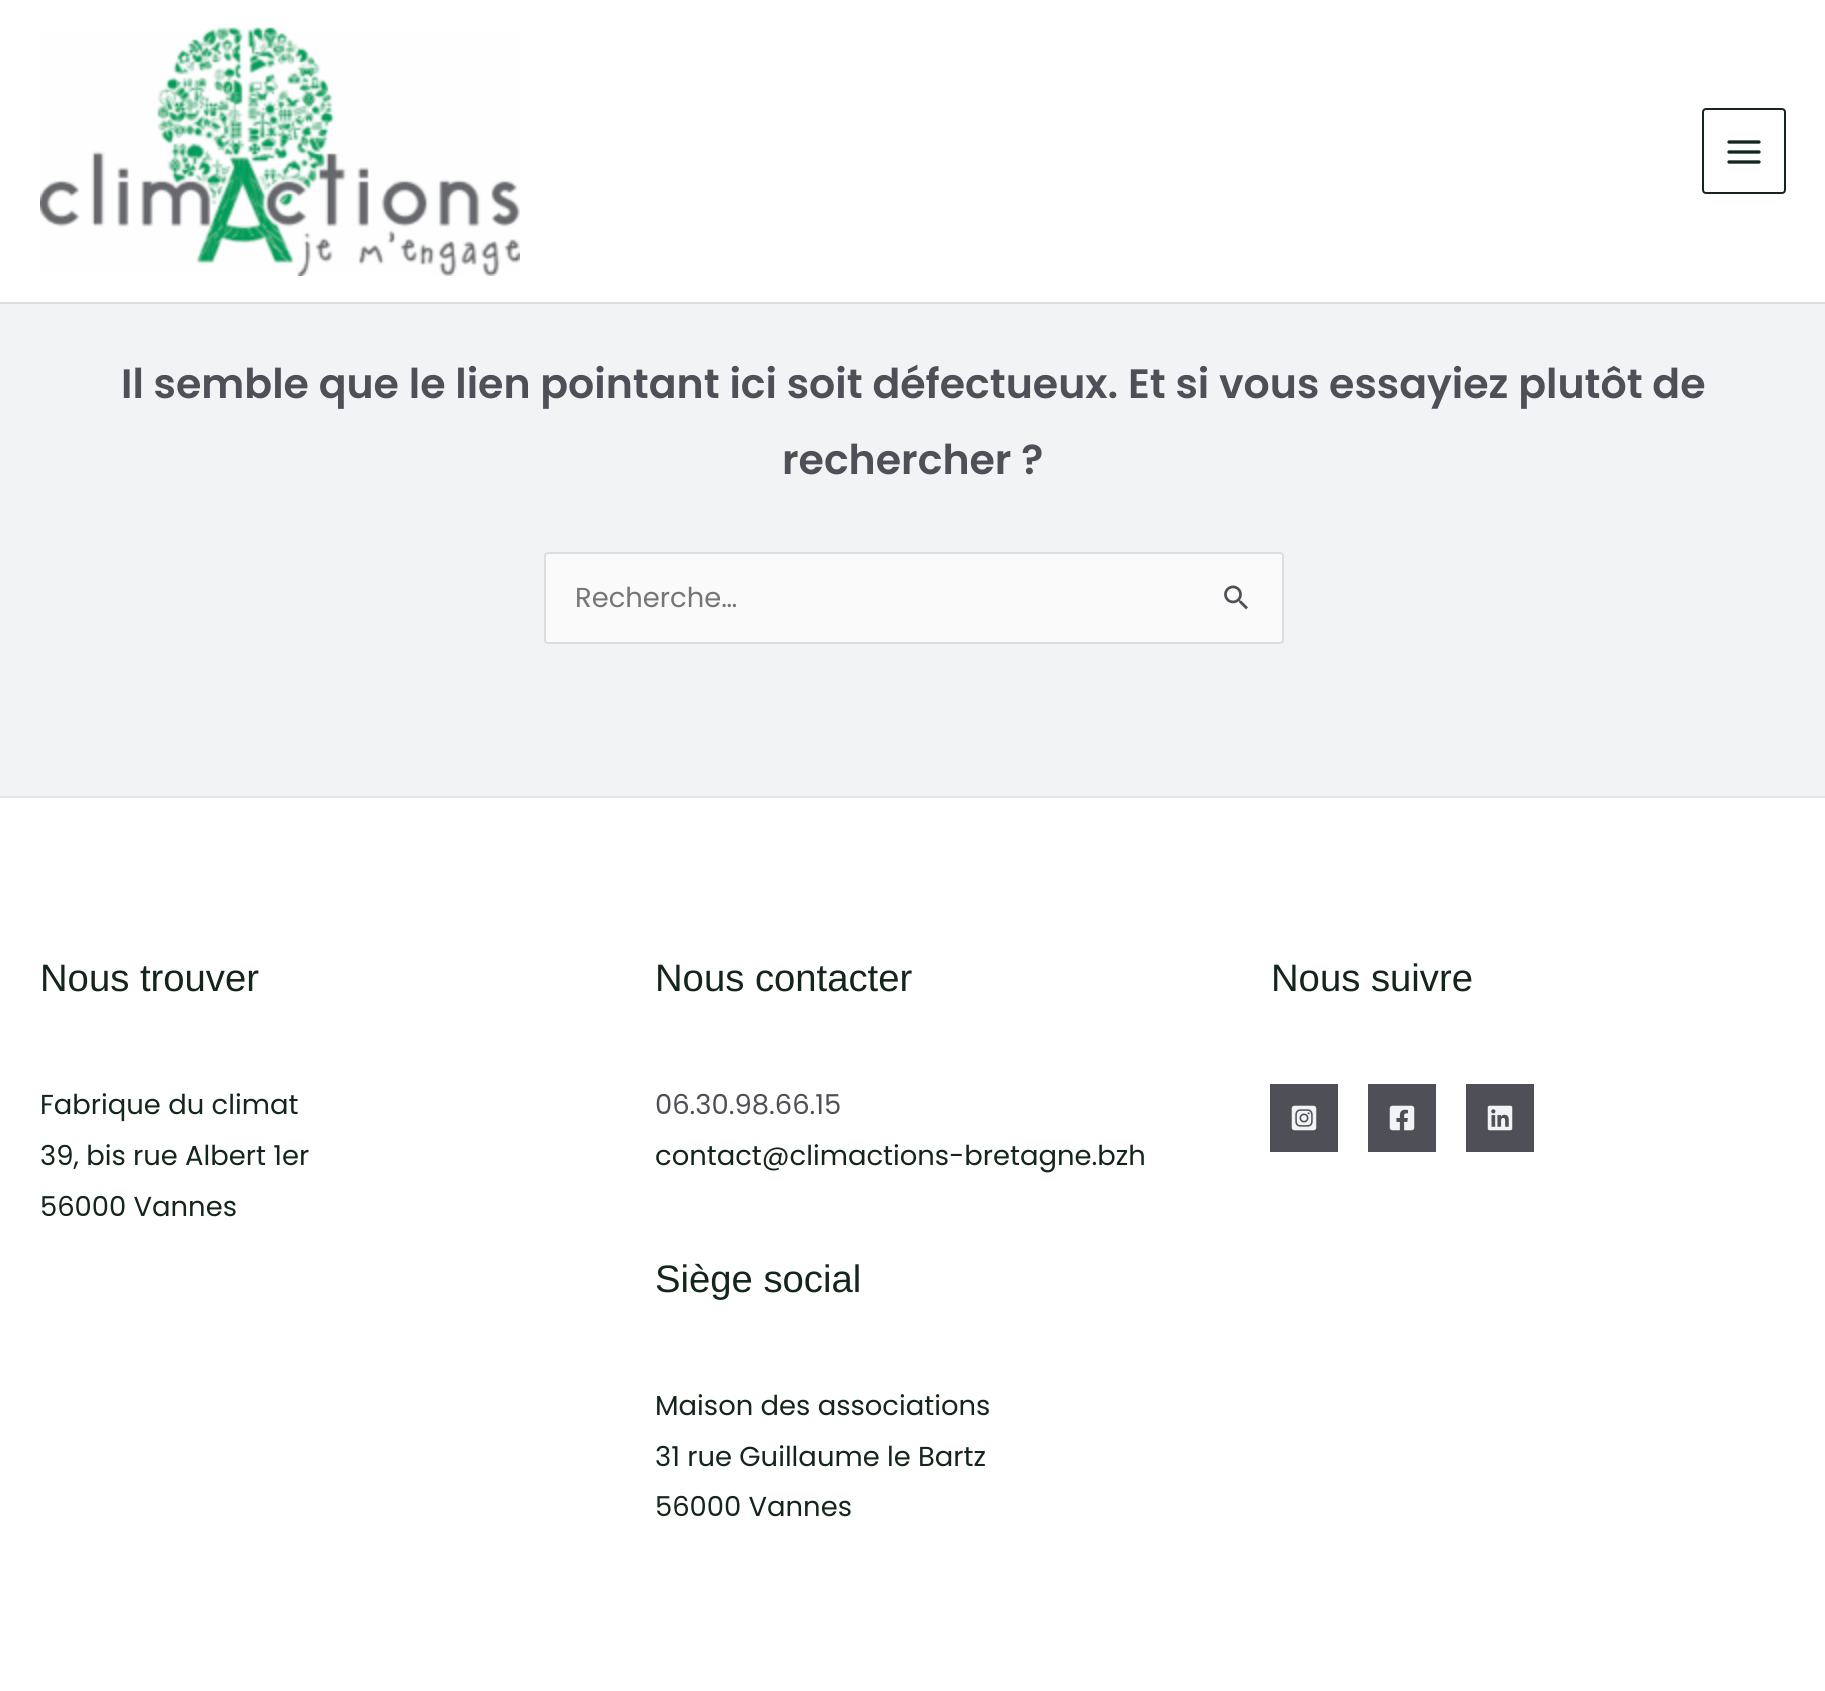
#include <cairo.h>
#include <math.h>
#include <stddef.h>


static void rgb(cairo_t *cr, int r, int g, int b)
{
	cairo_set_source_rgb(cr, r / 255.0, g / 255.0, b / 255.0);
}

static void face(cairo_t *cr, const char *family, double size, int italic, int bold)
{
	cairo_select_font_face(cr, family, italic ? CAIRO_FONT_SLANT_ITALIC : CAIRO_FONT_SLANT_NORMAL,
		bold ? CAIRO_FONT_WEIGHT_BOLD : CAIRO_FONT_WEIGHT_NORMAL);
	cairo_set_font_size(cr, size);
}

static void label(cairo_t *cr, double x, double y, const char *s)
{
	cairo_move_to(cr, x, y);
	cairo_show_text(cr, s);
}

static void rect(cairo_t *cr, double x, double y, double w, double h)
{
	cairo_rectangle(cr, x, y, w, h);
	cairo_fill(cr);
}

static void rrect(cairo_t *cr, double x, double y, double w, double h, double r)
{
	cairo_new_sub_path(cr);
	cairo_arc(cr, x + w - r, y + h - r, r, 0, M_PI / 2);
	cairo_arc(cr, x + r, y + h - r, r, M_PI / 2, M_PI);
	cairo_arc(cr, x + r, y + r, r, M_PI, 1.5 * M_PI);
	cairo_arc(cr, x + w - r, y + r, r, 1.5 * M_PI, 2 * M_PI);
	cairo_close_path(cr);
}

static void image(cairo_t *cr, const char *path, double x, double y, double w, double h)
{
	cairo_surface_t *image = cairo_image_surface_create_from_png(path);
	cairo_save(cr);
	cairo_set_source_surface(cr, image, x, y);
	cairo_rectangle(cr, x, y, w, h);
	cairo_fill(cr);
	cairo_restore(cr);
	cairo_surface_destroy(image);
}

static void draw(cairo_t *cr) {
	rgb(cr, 242, 243, 245);
	cairo_paint(cr);
	rgb(cr, 255, 255, 255);
	rect(cr, 0, 0, 1825, 302);
	rgb(cr, 221, 221, 221);
	rect(cr, 0, 302, 1825, 2);
	image(cr, "image0.png", 40, 27, 480, 249);
	rrect(cr, 1703, 109, 82, 84, 3);
	rgb(cr, 20, 38, 28);
	cairo_stroke(cr);
	image(cr, "image1.png", 1727, 140, 34, 24);
	face(cr, "Poppins SemiBold", 41.05, 0, 0);
	rgb(cr, 79, 80, 87);
	label(cr, 121, 398, "Il semble que le lien pointant ici soit défectueux. Et si vous essayiez plutôt de");
	label(cr, 782, 474, "rechercher ?");
	rgb(cr, 250, 250, 250);
	rrect(cr, 545, 553, 738, 90, 3);
	cairo_fill_preserve(cr);
	rgb(cr, 221, 221, 221);
	cairo_stroke(cr);
	face(cr, "Poppins", 27.4, 0, 0);
	rgb(cr, 117, 117, 117);
	label(cr, 575, 607, "Recherche…");
	image(cr, "image2.png", 1224, 585, 24, 25);
	rgb(cr, 255, 255, 255);
	rect(cr, 0, 798, 1825, 893);
	rgb(cr, 230, 230, 230);
	rect(cr, 0, 796, 1825, 2);
	face(cr, "Liberation Sans", 38.25, 0, 0);
	rgb(cr, 20, 38, 28);
	label(cr, 40, 991, "Nous trouver");
	face(cr, "Poppins", 27.4, 0, 0);
	label(cr, 40, 1114, "Fabrique du climat");
	label(cr, 40, 1165, "39, bis rue Albert 1er");
	label(cr, 40, 1216, "56000 Vannes");
	face(cr, "Liberation Sans", 38.25, 0, 0);
	label(cr, 655, 991, "Nous contacter");
	face(cr, "Poppins", 27.4, 0, 0);
	rgb(cr, 79, 80, 87);
	label(cr, 655, 1114, "06.30.98.66.15");
	rgb(cr, 20, 38, 28);
	label(cr, 655, 1165, "contact@climactions-bretagne.bzh");
	face(cr, "Liberation Sans", 38.25, 0, 0);
	label(cr, 655, 1292, "Siège social");
	face(cr, "Poppins", 27.4, 0, 0);
	label(cr, 655, 1415, "Maison des associations");
	label(cr, 655, 1466, "31 rue Guillaume le Bartz");
	label(cr, 655, 1516, "56000 Vannes");
	face(cr, "Liberation Sans", 38.25, 0, 0);
	label(cr, 1271, 991, "Nous suivre");
	rgb(cr, 79, 80, 87);
	rect(cr, 1270, 1084, 68, 68);
	image(cr, "image3.png", 1291, 1105, 26, 26);
	rect(cr, 1368, 1084, 68, 68);
	image(cr, "image4.png", 1389, 1105, 26, 26);
	rect(cr, 1466, 1084, 68, 68);
	image(cr, "image5.png", 1487, 1105, 26, 26);
}

int main(void) {
	cairo_surface_t *surface = cairo_image_surface_create(CAIRO_FORMAT_RGB24, 1825, 1691);
	cairo_t *cr = cairo_create(surface);
	cairo_font_options_t *options = cairo_font_options_create();
	cairo_font_options_set_hint_metrics(options, CAIRO_HINT_METRICS_OFF);
	cairo_font_options_set_hint_style(options, CAIRO_HINT_STYLE_NONE);
	cairo_set_font_options(cr, options);
	cairo_set_miter_limit(cr, 4);
	draw(cr);
	cairo_surface_write_to_png(surface, "render.png");
	cairo_font_options_destroy(options);
	cairo_destroy(cr);
	cairo_surface_destroy(surface);
	return 0;
}
